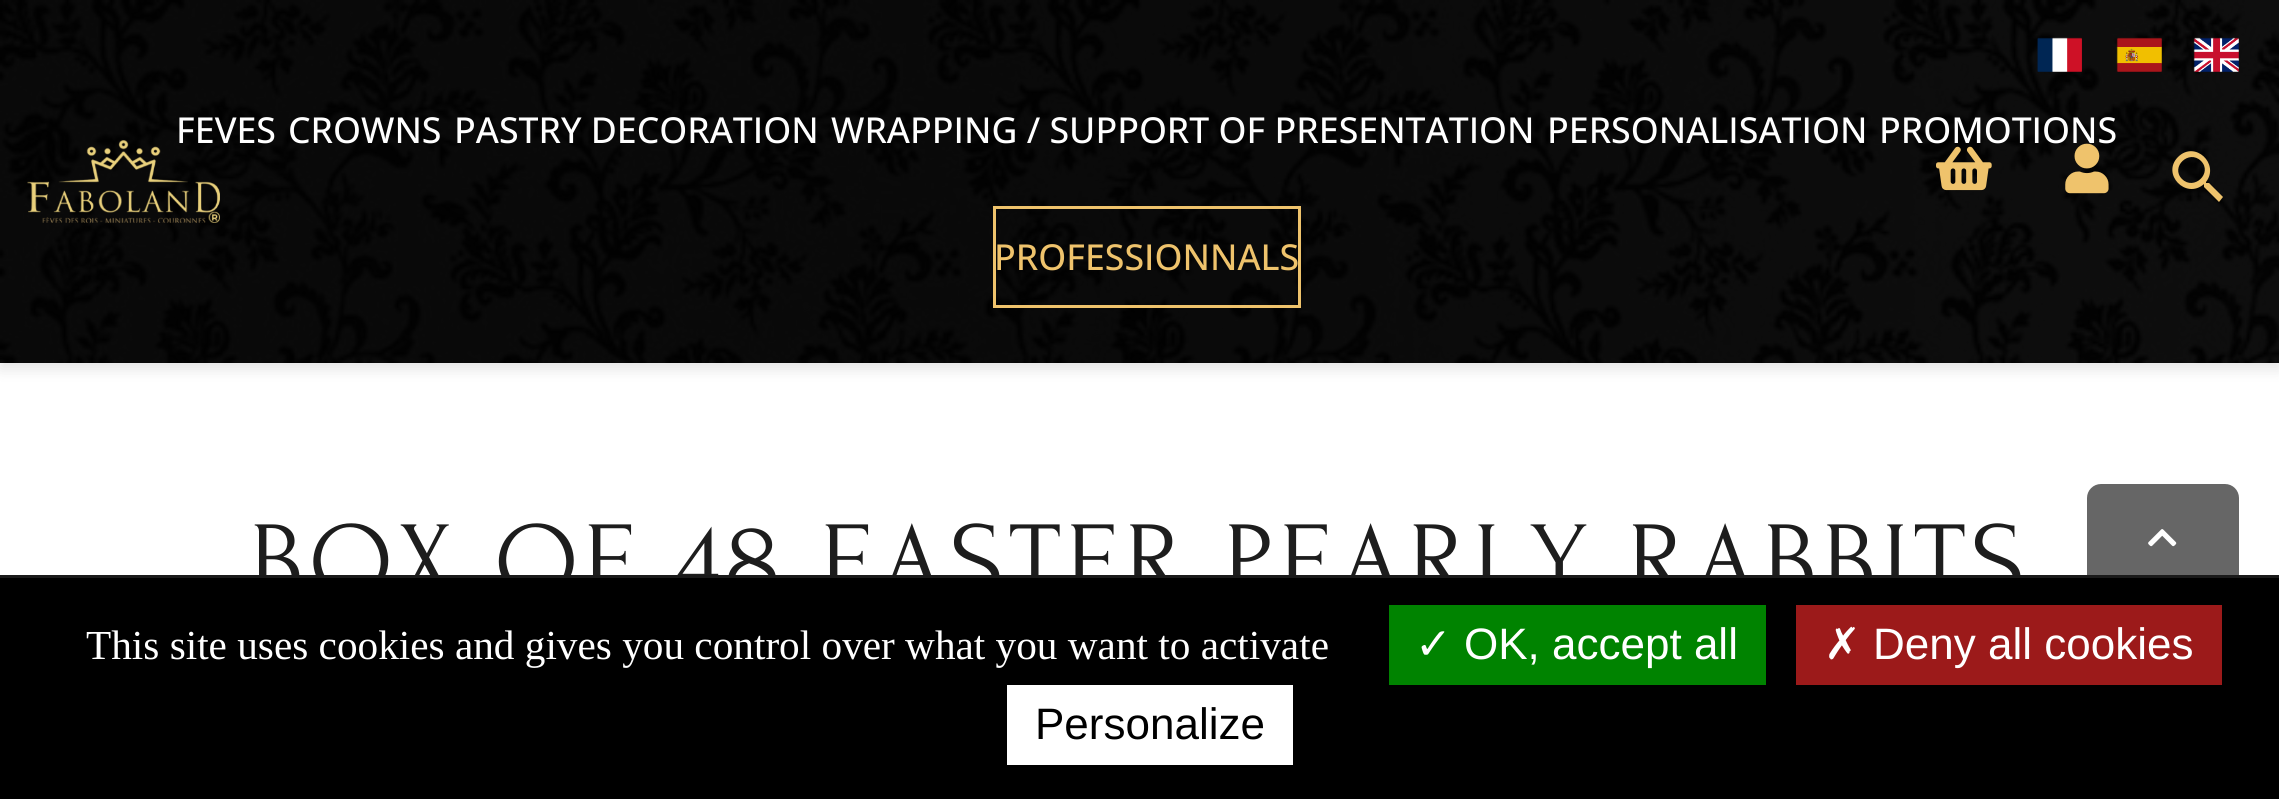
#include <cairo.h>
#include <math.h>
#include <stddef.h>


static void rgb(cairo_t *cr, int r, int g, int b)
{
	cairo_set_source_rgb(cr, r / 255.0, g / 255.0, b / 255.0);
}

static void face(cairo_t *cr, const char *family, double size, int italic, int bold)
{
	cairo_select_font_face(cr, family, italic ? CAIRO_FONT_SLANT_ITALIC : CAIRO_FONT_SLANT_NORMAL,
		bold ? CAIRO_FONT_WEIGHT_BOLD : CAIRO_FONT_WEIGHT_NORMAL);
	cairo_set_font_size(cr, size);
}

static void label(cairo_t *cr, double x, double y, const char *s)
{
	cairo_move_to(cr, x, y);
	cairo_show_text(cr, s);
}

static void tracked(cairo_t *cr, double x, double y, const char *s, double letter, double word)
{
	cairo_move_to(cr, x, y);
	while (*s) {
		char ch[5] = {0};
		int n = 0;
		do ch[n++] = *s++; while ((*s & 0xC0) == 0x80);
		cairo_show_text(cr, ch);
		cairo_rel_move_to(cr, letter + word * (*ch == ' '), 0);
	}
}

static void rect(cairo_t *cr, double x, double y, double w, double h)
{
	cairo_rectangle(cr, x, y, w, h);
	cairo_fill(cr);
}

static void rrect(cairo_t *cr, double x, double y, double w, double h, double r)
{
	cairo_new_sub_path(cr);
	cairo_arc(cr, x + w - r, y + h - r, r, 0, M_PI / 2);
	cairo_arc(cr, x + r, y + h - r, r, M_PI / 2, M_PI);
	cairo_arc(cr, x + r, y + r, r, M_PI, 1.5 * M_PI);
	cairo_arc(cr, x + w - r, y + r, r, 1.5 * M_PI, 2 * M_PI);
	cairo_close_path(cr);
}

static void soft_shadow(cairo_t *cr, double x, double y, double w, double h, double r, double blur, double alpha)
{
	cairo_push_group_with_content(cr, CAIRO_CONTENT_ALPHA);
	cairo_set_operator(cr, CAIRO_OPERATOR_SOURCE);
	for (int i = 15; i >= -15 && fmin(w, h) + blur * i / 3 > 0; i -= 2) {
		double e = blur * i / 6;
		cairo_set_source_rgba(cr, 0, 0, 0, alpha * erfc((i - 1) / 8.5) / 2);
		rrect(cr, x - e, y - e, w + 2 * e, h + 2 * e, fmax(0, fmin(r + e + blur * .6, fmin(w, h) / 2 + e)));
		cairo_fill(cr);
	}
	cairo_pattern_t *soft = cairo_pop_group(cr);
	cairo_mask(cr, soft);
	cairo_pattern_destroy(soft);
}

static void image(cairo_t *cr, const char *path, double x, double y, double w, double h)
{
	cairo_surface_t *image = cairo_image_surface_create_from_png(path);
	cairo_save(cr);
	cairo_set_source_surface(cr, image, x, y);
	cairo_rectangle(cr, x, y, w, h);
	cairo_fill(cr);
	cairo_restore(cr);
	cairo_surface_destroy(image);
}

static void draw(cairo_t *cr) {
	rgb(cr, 255, 255, 255);
	cairo_paint(cr);
	rgb(cr, 0, 0, 0);
	soft_shadow(cr, 0, 6, 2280, 363, 0, 7, 0.11);
	rgb(cr, 0, 0, 0);
	rect(cr, 0, 0, 2279, 363);
	image(cr, "image0.png", 0, 0, 2279, 363);
	image(cr, "image1.png", 27, 140, 193, 83);
	image(cr, "image2.png", 2037, 37, 45, 35);
	image(cr, "image3.png", 2116, 37, 46, 35);
	image(cr, "image4.png", 2193, 37, 46, 35);
	image(cr, "image5.png", 2037, 38, 45, 34);
	image(cr, "image6.png", 2117, 38, 45, 34);
	image(cr, "image7.png", 2194, 38, 45, 34);
	face(cr, "Open Sans Medium", 35.75, 0, 0);
	rgb(cr, 255, 255, 255);
	label(cr, 176, 143, "FEVES");
	label(cr, 288, 143, "CROWNS");
	label(cr, 454, 143, "PASTRY DECORATION");
	label(cr, 831, 143, "WRAPPING / SUPPORT OF PRESENTATION");
	label(cr, 1547, 143, "PERSONALISATION");
	label(cr, 1879, 143, "PROMOTIONS");
	cairo_rectangle(cr, 994.5, 207.5, 305, 99);
	rgb(cr, 239, 195, 108);
	cairo_set_line_width(cr, 3);
	cairo_stroke(cr);
	label(cr, 994, 270, "PROFESSIONNALS");
	image(cr, "image8.png", 1936, 146, 56, 45);
	image(cr, "image9.png", 2065, 143, 44, 51);
	cairo_new_path(cr);
	cairo_move_to(cr, 2182, 179);
	cairo_curve_to(cr, 2194, 191, 2213, 173, 2201, 161);
	cairo_curve_to(cr, 2189, 149, 2170, 167, 2182, 179);
	cairo_close_path(cr);
	cairo_move_to(cr, 2209, 183);
	cairo_line_to(cr, 2223, 197);
	cairo_line_to(cr, 2219, 202);
	cairo_line_to(cr, 2204, 187);
	cairo_line_to(cr, 2204, 185);
	cairo_line_to(cr, 2204, 184);
	cairo_curve_to(cr, 2186, 200, 2161, 174, 2178, 157);
	cairo_curve_to(cr, 2195, 140, 2220, 164, 2206, 182);
	cairo_line_to(cr, 2206, 183);
	cairo_close_path(cr);
	cairo_fill(cr);
	face(cr, "Forum", 110, 0, 0);
	rgb(cr, 29, 29, 29);
	tracked(cr, 250, 597, "BOX OF 48 EASTER PEARLY RABBITS", 5.5, 0);
	rgb(cr, 102, 102, 102);
	rrect(cr, 2087, 484, 152, 151, 14);
	cairo_fill(cr);
	image(cr, "image10.png", 2148, 529, 29, 18);
	rgb(cr, 0, 0, 0);
	rect(cr, 0, 578, 2279, 221);
	rgb(cr, 26, 26, 26);
	rect(cr, 0, 575, 2279, 3);
	face(cr, "Liberation Serif", 41.25, 0, 0);
	rgb(cr, 255, 255, 255);
	label(cr, 86, 659, "This site uses cookies and gives you control over what you want to activate");
	rgb(cr, 0, 131, 0);
	rect(cr, 1389, 605, 377, 80);
	face(cr, "DejaVu Sans", 44, 0, 0);
	rgb(cr, 255, 255, 255);
	label(cr, 1415, 659, "✓");
	face(cr, "Liberation Sans", 44, 0, 0);
	label(cr, 1464, 659, "OK, accept all");
	rgb(cr, 156, 26, 26);
	rect(cr, 1796, 605, 426, 80);
	face(cr, "DejaVu Sans", 44, 0, 0);
	rgb(cr, 255, 255, 255);
	label(cr, 1824, 659, "✗");
	face(cr, "Liberation Sans", 44, 0, 0);
	label(cr, 1873, 659, "Deny all cookies");
	rect(cr, 1007, 685, 286, 80);
	rgb(cr, 0, 0, 0);
	label(cr, 1035, 739, "Personalize");
}

int main(void) {
	cairo_surface_t *surface = cairo_image_surface_create(CAIRO_FORMAT_RGB24, 2279, 799);
	cairo_t *cr = cairo_create(surface);
	cairo_font_options_t *options = cairo_font_options_create();
	cairo_font_options_set_hint_metrics(options, CAIRO_HINT_METRICS_OFF);
	cairo_font_options_set_hint_style(options, CAIRO_HINT_STYLE_NONE);
	cairo_set_font_options(cr, options);
	cairo_set_miter_limit(cr, 4);
	draw(cr);
	cairo_surface_write_to_png(surface, "render.png");
	cairo_font_options_destroy(options);
	cairo_destroy(cr);
	cairo_surface_destroy(surface);
	return 0;
}
